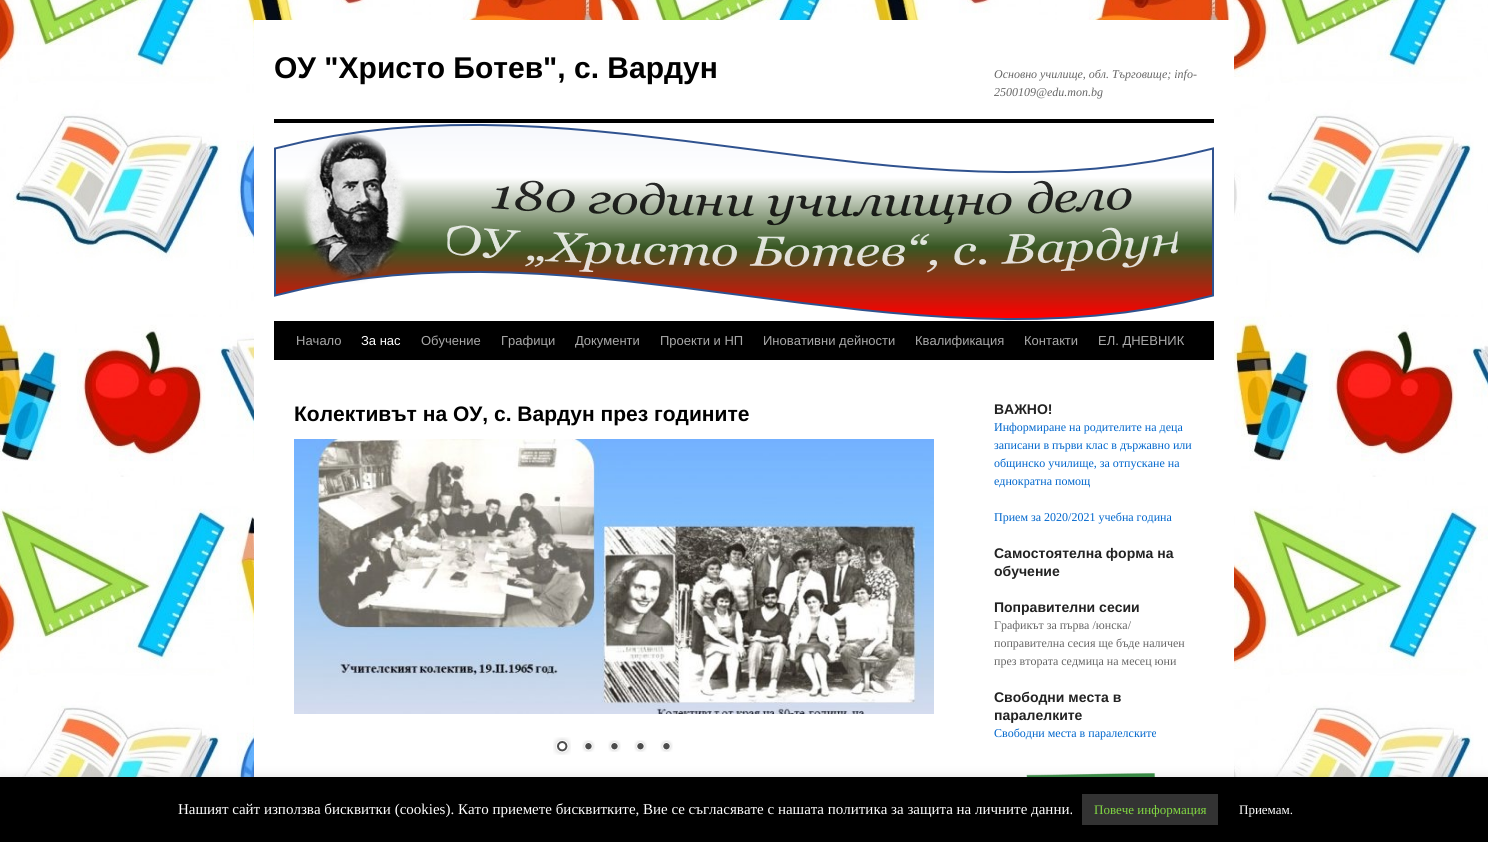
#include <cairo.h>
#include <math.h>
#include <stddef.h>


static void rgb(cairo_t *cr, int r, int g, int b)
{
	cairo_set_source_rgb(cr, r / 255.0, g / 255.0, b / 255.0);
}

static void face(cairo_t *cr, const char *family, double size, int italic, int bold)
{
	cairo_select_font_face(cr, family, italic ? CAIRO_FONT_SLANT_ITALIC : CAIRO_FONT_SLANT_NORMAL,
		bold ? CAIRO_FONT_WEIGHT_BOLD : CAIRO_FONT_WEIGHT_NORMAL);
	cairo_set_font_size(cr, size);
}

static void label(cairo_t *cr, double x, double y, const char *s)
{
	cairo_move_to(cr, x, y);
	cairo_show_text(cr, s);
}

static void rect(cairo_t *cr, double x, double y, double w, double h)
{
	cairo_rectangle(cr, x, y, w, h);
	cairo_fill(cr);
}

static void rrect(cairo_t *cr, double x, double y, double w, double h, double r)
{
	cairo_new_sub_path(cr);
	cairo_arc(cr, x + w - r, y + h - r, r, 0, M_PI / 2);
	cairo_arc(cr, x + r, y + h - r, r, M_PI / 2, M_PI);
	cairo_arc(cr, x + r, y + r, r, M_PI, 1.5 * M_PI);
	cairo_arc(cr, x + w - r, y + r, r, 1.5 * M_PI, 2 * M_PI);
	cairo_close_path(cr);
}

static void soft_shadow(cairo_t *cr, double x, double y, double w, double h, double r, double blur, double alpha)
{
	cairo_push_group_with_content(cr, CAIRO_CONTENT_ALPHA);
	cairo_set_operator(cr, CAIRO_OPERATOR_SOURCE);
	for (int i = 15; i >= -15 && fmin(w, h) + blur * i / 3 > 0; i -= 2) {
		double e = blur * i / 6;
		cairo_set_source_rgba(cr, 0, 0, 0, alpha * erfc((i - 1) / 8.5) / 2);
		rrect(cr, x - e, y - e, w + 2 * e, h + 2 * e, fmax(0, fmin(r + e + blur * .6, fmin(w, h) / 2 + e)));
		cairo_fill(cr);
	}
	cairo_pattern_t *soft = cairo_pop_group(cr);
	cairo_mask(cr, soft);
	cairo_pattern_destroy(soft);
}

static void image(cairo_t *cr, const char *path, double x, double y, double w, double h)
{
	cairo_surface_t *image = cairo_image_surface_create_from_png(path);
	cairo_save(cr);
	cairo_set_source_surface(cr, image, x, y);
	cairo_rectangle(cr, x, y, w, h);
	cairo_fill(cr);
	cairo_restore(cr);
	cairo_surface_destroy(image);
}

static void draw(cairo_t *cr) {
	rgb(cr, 255, 255, 255);
	cairo_paint(cr);
	image(cr, "image0.png", 0, 0, 1488, 777);
	rgb(cr, 255, 255, 255);
	rect(cr, 254, 20, 980, 757);
	face(cr, "Liberation Sans", 30, 0, 1);
	rgb(cr, 0, 0, 0);
	label(cr, 274, 78, "ОУ \"Христо Ботев\", с. Вардун");
	face(cr, "Liberation Serif", 12, 1, 0);
	rgb(cr, 102, 102, 102);
	label(cr, 994, 78, "Основно училище, обл. Търговище; info-");
	label(cr, 994, 96, "2500109@edu.mon.bg");
	rgb(cr, 0, 0, 0);
	rect(cr, 274, 119, 940, 4);
	rect(cr, 274, 321, 940, 39);
	image(cr, "image1.png", 274, 123, 940, 198);
	face(cr, "Liberation Sans", 13, 0, 0);
	rgb(cr, 170, 170, 170);
	label(cr, 296, 345, "Начало");
	rgb(cr, 255, 255, 255);
	label(cr, 361, 345, "За нас");
	rgb(cr, 170, 170, 170);
	label(cr, 421, 345, "Обучение");
	label(cr, 501, 345, "Графици");
	label(cr, 575, 345, "Документи");
	label(cr, 660, 345, "Проекти и НП");
	label(cr, 763, 345, "Иновативни дейности");
	label(cr, 915, 345, "Квалификация");
	label(cr, 1024, 345, "Контакти");
	label(cr, 1098, 345, "ЕЛ. ДНЕВНИК");
	face(cr, "Liberation Sans", 21, 0, 1);
	rgb(cr, 0, 0, 0);
	label(cr, 294, 421, "Колективът на ОУ, с. Вардун през годините");
	image(cr, "image2.png", 294, 439, 640, 275);
	image(cr, "image3.png", 553, 737, 18, 18);
	image(cr, "image4.png", 582, 740, 13, 12);
	image(cr, "image4.png", 608, 740, 13, 12);
	image(cr, "image4.png", 634, 740, 13, 12);
	image(cr, "image4.png", 660, 740, 13, 12);
	face(cr, "Liberation Sans", 14, 0, 1);
	rgb(cr, 34, 34, 34);
	label(cr, 994, 414, "ВАЖНО!");
	face(cr, "Liberation Serif", 12, 0, 0);
	rgb(cr, 0, 102, 204);
	label(cr, 994, 431, "Информиране на родителите на деца");
	label(cr, 994, 449, "записани в първи клас в държавно или");
	label(cr, 994, 467, "общинско училище, за отпускане на");
	label(cr, 994, 485, "еднократна помощ");
	label(cr, 994, 521, "Прием за 2020/2021 учебна година");
	face(cr, "Liberation Sans", 14, 0, 1);
	rgb(cr, 34, 34, 34);
	label(cr, 994, 558, "Самостоятелна форма на");
	label(cr, 994, 576, "обучение");
	label(cr, 994, 612, "Поправителни сесии");
	face(cr, "Liberation Serif", 12, 0, 0);
	rgb(cr, 102, 102, 102);
	label(cr, 994, 629, "Графикът за първа /юнска/");
	label(cr, 994, 647, "поправителна сесия ще бъде наличен");
	label(cr, 994, 665, "през втората седмица на месец юни");
	face(cr, "Liberation Sans", 14, 0, 1);
	rgb(cr, 34, 34, 34);
	label(cr, 994, 702, "Свободни места в");
	label(cr, 994, 720, "паралелките");
	face(cr, "Liberation Serif", 12, 0, 0);
	rgb(cr, 0, 102, 204);
	label(cr, 994, 737, "Свободни места в паралелските");
	image(cr, "image5.png", 1026, 773, 134, 4);
	rgb(cr, 172, 171, 171);
	soft_shadow(cr, 0, 776, 1488, 65, 0, 5, 0.3);
	rgb(cr, 0, 0, 0);
	rect(cr, 0, 777, 1488, 65);
	face(cr, "Liberation Serif", 15, 0, 0);
	rgb(cr, 255, 255, 255);
	label(cr, 178, 814, "Нашият сайт използва бисквитки (cookies). Като приемете бисквитките, Вие се съгласявате с нашата политика за защита на личните данни.");
	rgb(cr, 51, 51, 51);
	rect(cr, 1082, 794, 136, 31);
	face(cr, "Liberation Serif", 13, 0, 0);
	rgb(cr, 129, 215, 66);
	label(cr, 1094, 814, "Повече информация");
	rgb(cr, 255, 255, 255);
	label(cr, 1239, 814, "Приемам.");
}

int main(void) {
	cairo_surface_t *surface = cairo_image_surface_create(CAIRO_FORMAT_RGB24, 1488, 842);
	cairo_t *cr = cairo_create(surface);
	cairo_font_options_t *options = cairo_font_options_create();
	cairo_font_options_set_hint_metrics(options, CAIRO_HINT_METRICS_OFF);
	cairo_font_options_set_hint_style(options, CAIRO_HINT_STYLE_NONE);
	cairo_set_font_options(cr, options);
	cairo_set_miter_limit(cr, 4);
	draw(cr);
	cairo_surface_write_to_png(surface, "render.png");
	cairo_font_options_destroy(options);
	cairo_destroy(cr);
	cairo_surface_destroy(surface);
	return 0;
}
